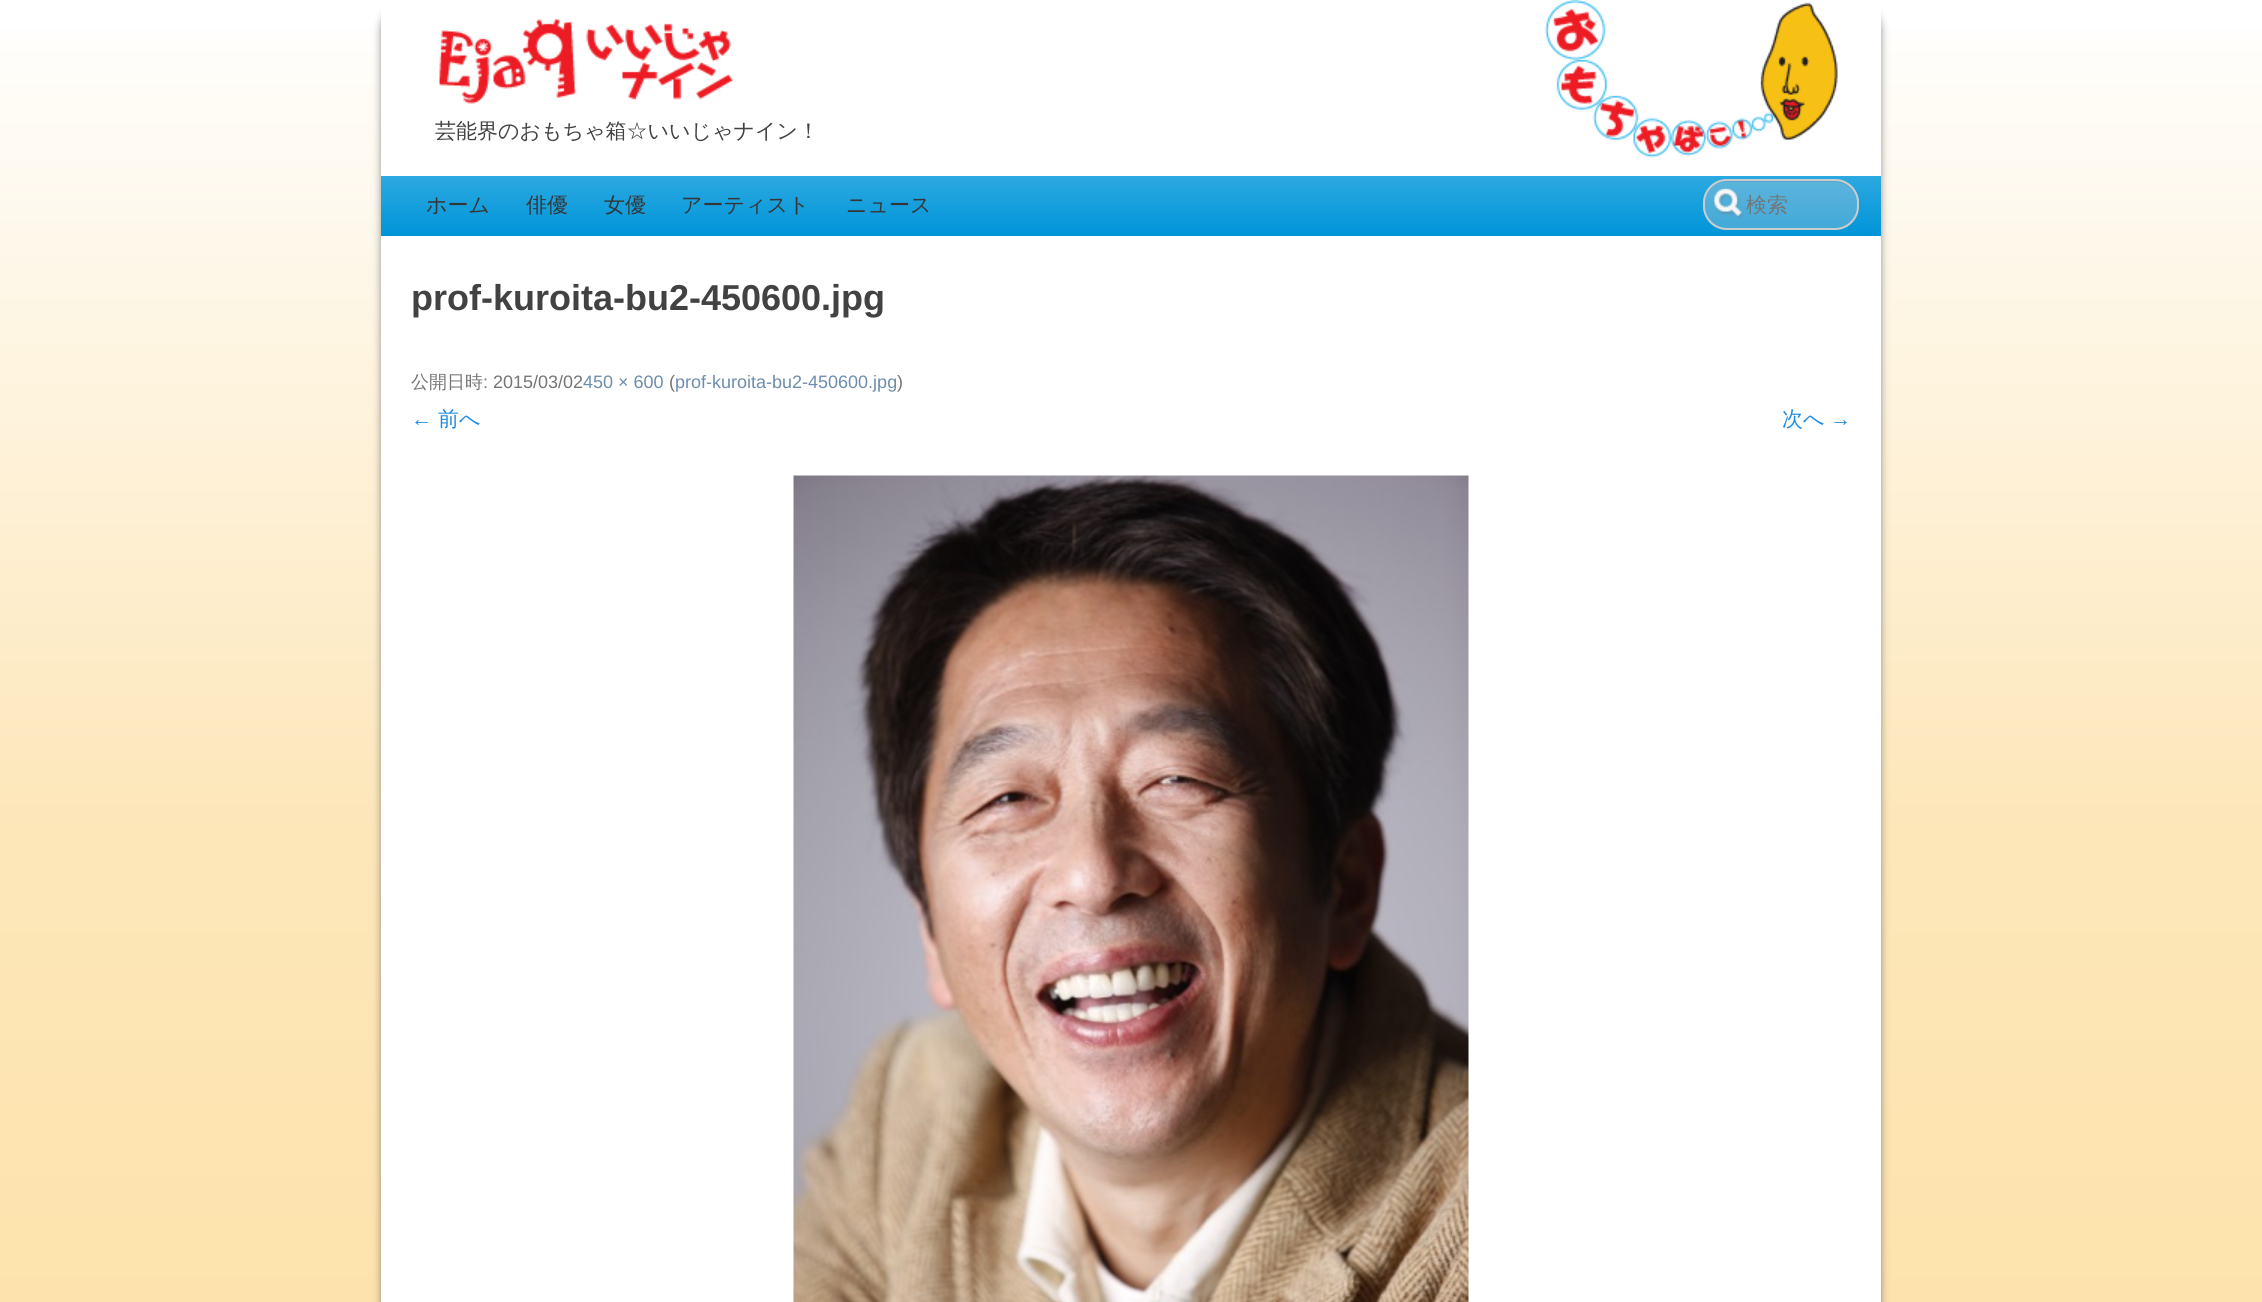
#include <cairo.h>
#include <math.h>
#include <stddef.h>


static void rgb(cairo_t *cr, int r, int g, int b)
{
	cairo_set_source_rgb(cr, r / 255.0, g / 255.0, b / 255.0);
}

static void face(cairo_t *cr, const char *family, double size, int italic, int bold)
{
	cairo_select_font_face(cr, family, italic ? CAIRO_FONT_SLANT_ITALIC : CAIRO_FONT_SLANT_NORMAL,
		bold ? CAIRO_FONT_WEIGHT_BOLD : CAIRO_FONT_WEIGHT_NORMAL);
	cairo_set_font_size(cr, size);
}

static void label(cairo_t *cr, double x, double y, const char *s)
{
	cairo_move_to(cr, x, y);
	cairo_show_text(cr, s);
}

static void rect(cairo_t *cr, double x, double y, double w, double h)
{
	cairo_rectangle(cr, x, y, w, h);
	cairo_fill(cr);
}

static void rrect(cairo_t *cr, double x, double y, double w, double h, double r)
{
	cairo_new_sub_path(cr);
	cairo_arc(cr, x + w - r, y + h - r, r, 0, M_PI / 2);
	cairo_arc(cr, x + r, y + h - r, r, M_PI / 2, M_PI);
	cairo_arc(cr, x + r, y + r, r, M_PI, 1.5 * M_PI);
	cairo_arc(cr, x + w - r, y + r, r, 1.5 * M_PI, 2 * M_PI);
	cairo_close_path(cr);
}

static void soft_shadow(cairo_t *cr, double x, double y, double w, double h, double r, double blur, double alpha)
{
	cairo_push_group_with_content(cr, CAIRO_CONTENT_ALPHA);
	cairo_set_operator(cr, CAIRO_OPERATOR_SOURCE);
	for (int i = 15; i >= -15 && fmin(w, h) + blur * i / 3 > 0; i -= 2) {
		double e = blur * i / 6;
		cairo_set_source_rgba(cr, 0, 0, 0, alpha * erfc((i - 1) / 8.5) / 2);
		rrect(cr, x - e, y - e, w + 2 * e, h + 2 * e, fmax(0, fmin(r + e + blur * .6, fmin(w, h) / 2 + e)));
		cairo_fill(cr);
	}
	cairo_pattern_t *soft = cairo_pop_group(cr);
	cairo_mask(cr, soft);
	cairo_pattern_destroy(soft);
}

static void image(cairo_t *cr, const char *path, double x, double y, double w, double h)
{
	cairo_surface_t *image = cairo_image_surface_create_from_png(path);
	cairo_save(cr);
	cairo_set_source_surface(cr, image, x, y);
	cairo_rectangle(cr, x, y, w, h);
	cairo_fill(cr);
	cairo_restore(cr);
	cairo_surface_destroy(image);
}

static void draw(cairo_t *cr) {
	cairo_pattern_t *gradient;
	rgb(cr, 255, 255, 255);
	cairo_paint(cr);
	gradient = cairo_pattern_create_linear(1131, 0, 1131, 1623);
	cairo_pattern_add_color_stop_rgba(gradient, 0, 1, 1, 1, 1);
	cairo_pattern_add_color_stop_rgba(gradient, 0.5, 0.992, 0.906, 0.729, 1);
	cairo_pattern_add_color_stop_rgba(gradient, 1, 0.992, 0.875, 0.639, 1);
	cairo_set_source(cr, gradient);
	cairo_pattern_destroy(gradient);
	rect(cr, 0, 29, 2262, 1273);
	rgb(cr, 100, 100, 100);
	soft_shadow(cr, 381, 0, 1500, 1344, 30, 4, 0.7);
	rgb(cr, 255, 255, 255);
	rect(cr, 381, 0, 1500, 1302);
	image(cr, "image0.png", 1544, 0, 294, 158);
	image(cr, "image1.png", 439, 19, 295, 85);
	face(cr, "WenQuanYi Zen Hei Medium", 21, 0, 0);
	rgb(cr, 66, 66, 66);
	label(cr, 435, 138, "芸能界のおもちゃ箱☆いいじゃナイン！");
	gradient = cairo_pattern_create_linear(1131, 175, 1131, 236);
	cairo_pattern_add_color_stop_rgba(gradient, 0, 0.173, 0.663, 0.882, 1);
	cairo_pattern_add_color_stop_rgba(gradient, 1, 0, 0.584, 0.851, 1);
	cairo_set_source(cr, gradient);
	cairo_pattern_destroy(gradient);
	rect(cr, 381, 176, 1500, 60);
	rgb(cr, 53, 53, 53);
	label(cr, 426, 212, "ホーム");
	label(cr, 526, 212, "俳優");
	label(cr, 604, 212, "女優");
	label(cr, 681, 212, "アーティスト");
	label(cr, 846, 212, "ニュース");
	cairo_set_source_rgba(cr, 0.824, 0.824, 0.824, 0.3);
	rrect(cr, 1703, 179, 156, 51, 24);
	cairo_fill(cr);
	image(cr, "image2.png", 1713, 187, 31, 32);
	cairo_set_source_rgba(cr, 0, 0, 0, 0.07);
	cairo_new_path(cr);
	cairo_move_to(cr, 1726, 182);
	cairo_line_to(cr, 1834, 182);
	cairo_curve_to(cr, 1847, 182, 1857, 192, 1857, 204);
	cairo_line_to(cr, 1857, 203);
	cairo_curve_to(cr, 1857, 190, 1847, 180, 1834, 180);
	cairo_line_to(cr, 1727, 180);
	cairo_curve_to(cr, 1714, 180, 1704, 190, 1704, 203);
	cairo_line_to(cr, 1704, 204);
	cairo_curve_to(cr, 1704, 192, 1714, 182, 1726, 182);
	cairo_close_path(cr);
	cairo_fill(cr);
	rrect(cr, 1704, 180, 154, 49, 23);
	rgb(cr, 204, 204, 204);
	cairo_stroke(cr);
	rgb(cr, 117, 117, 117);
	label(cr, 1746, 212, "検索");
	face(cr, "Liberation Sans", 36, 0, 1);
	rgb(cr, 66, 66, 66);
	label(cr, 411, 310, "prof-kuroita-bu2-450600.jpg");
	face(cr, "WenQuanYi Zen Hei Medium", 18, 0, 0);
	rgb(cr, 117, 117, 117);
	label(cr, 411, 388, "公開日時");
	face(cr, "Liberation Sans", 18, 0, 0);
	label(cr, 483, 388, ": 2015/03/02");
	rgb(cr, 109, 141, 173);
	label(cr, 583, 388, "450 × 600");
	rgb(cr, 117, 117, 117);
	label(cr, 669, 388, "(");
	rgb(cr, 109, 141, 173);
	label(cr, 675, 388, "prof-kuroita-bu2-450600.jpg");
	rgb(cr, 117, 117, 117);
	label(cr, 897, 388, ")");
	face(cr, "Liberation Sans", 21, 0, 0);
	rgb(cr, 27, 139, 224);
	label(cr, 411, 426, "←");
	face(cr, "WenQuanYi Zen Hei Medium", 21, 0, 0);
	label(cr, 438, 426, "前へ");
	label(cr, 1782, 426, "次へ");
	face(cr, "Liberation Sans", 21, 0, 0);
	label(cr, 1830, 426, "→");
	image(cr, "image3.png", 793, 475, 676, 827);
}

int main(void) {
	cairo_surface_t *surface = cairo_image_surface_create(CAIRO_FORMAT_RGB24, 2262, 1302);
	cairo_t *cr = cairo_create(surface);
	cairo_font_options_t *options = cairo_font_options_create();
	cairo_font_options_set_hint_metrics(options, CAIRO_HINT_METRICS_OFF);
	cairo_font_options_set_hint_style(options, CAIRO_HINT_STYLE_NONE);
	cairo_set_font_options(cr, options);
	cairo_set_miter_limit(cr, 4);
	draw(cr);
	cairo_surface_write_to_png(surface, "render.png");
	cairo_font_options_destroy(options);
	cairo_destroy(cr);
	cairo_surface_destroy(surface);
	return 0;
}
